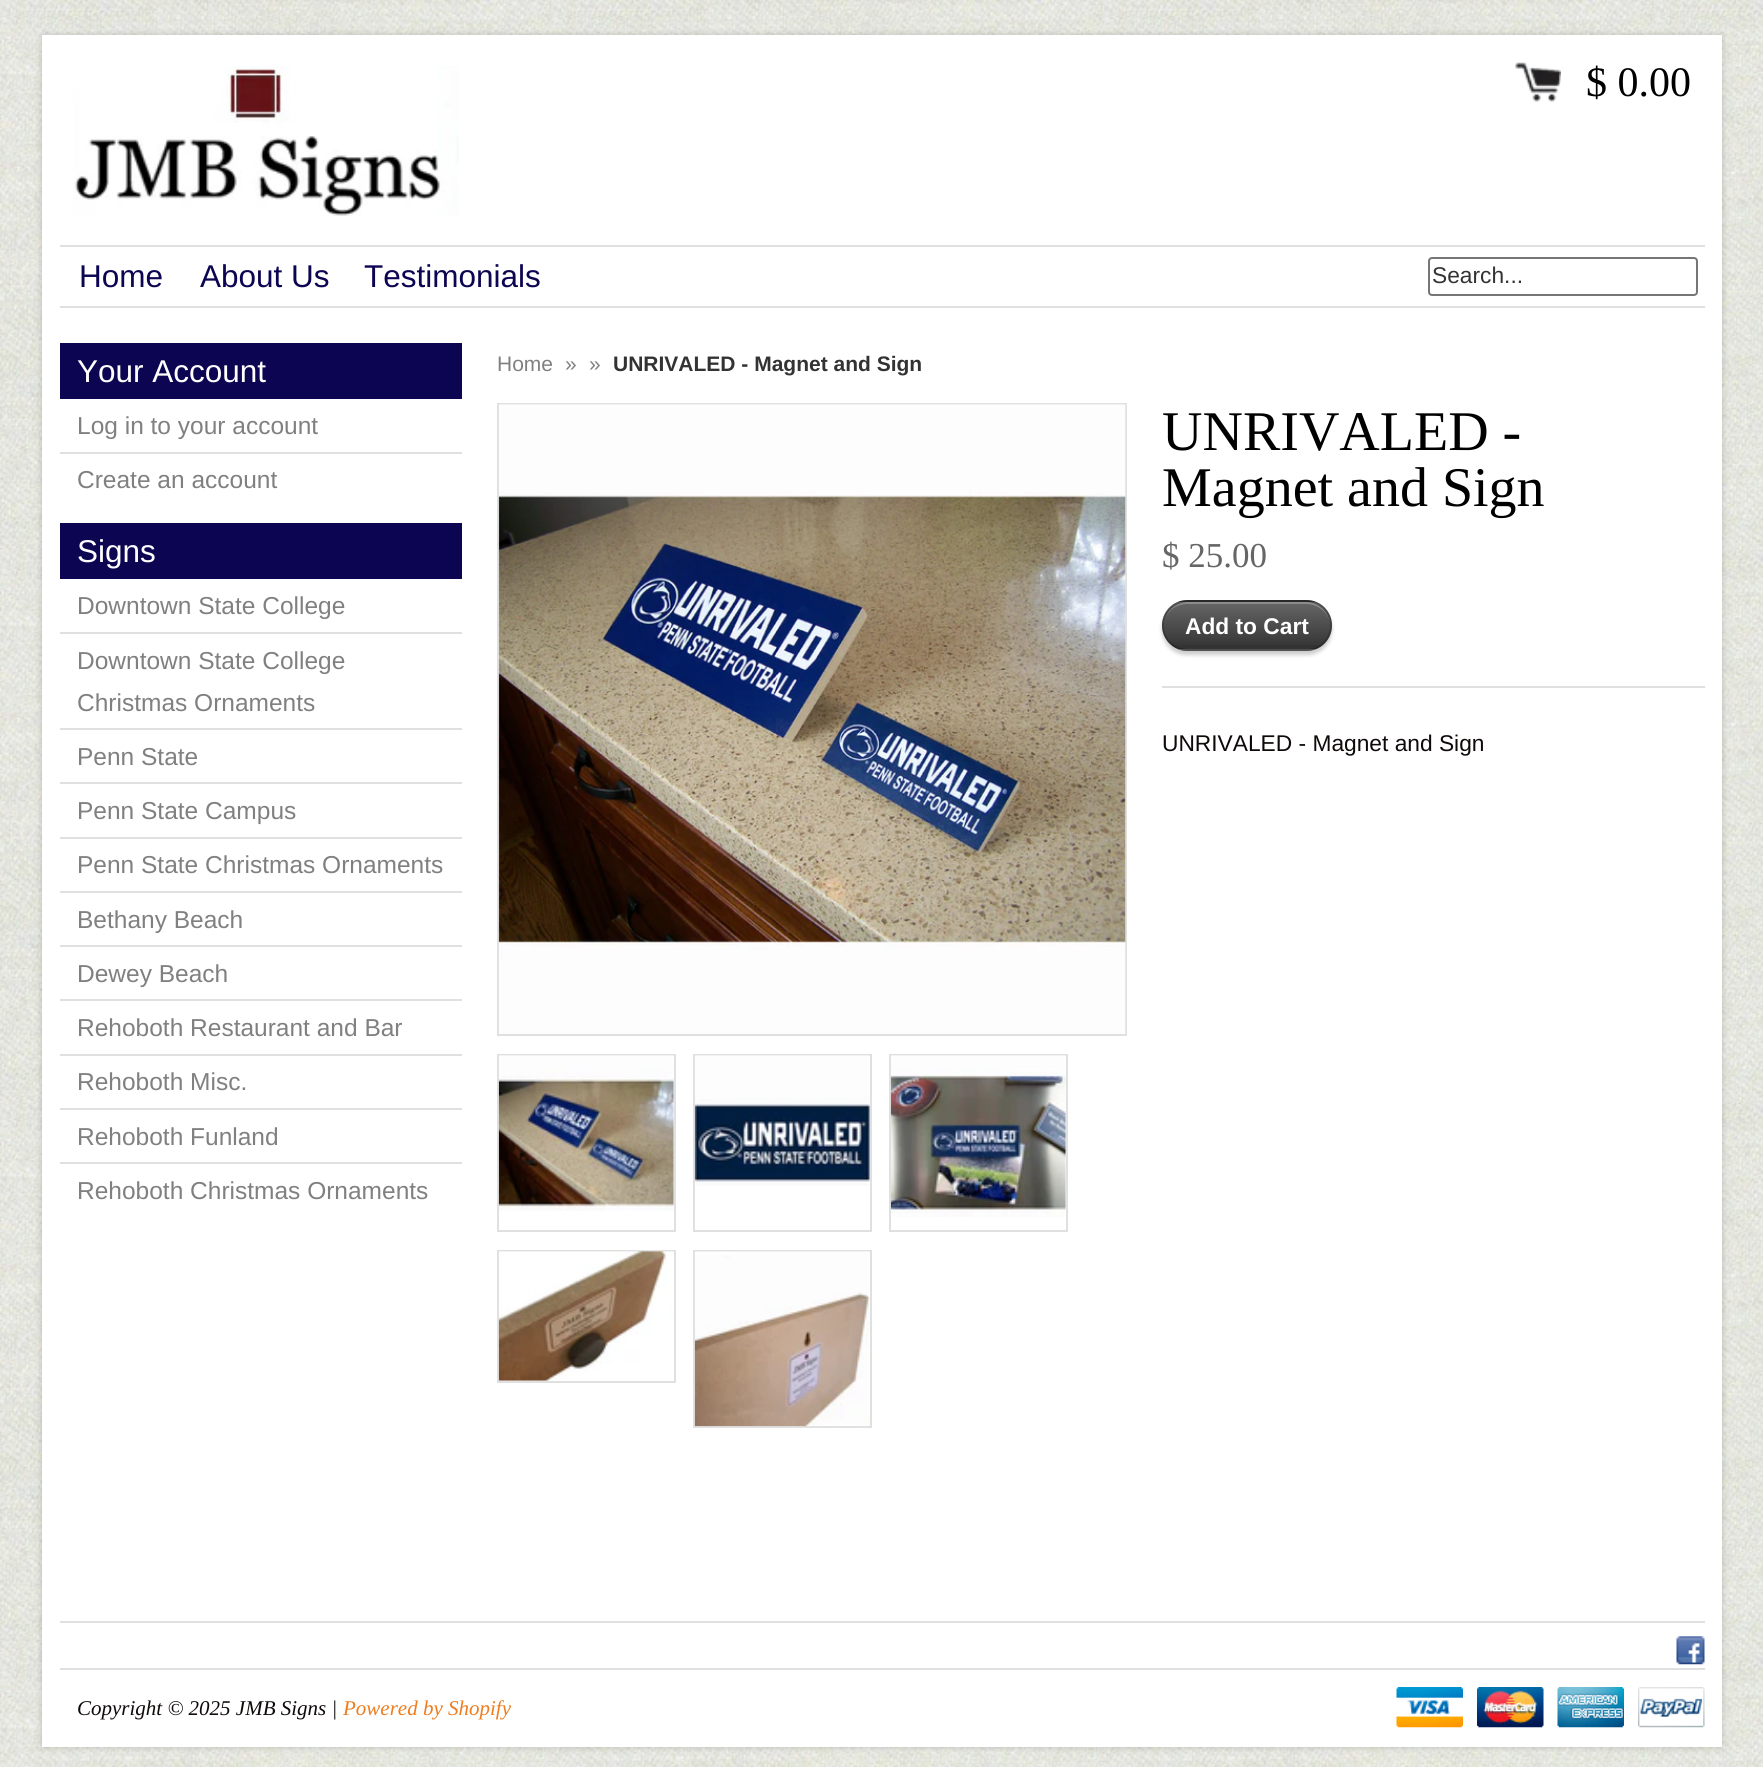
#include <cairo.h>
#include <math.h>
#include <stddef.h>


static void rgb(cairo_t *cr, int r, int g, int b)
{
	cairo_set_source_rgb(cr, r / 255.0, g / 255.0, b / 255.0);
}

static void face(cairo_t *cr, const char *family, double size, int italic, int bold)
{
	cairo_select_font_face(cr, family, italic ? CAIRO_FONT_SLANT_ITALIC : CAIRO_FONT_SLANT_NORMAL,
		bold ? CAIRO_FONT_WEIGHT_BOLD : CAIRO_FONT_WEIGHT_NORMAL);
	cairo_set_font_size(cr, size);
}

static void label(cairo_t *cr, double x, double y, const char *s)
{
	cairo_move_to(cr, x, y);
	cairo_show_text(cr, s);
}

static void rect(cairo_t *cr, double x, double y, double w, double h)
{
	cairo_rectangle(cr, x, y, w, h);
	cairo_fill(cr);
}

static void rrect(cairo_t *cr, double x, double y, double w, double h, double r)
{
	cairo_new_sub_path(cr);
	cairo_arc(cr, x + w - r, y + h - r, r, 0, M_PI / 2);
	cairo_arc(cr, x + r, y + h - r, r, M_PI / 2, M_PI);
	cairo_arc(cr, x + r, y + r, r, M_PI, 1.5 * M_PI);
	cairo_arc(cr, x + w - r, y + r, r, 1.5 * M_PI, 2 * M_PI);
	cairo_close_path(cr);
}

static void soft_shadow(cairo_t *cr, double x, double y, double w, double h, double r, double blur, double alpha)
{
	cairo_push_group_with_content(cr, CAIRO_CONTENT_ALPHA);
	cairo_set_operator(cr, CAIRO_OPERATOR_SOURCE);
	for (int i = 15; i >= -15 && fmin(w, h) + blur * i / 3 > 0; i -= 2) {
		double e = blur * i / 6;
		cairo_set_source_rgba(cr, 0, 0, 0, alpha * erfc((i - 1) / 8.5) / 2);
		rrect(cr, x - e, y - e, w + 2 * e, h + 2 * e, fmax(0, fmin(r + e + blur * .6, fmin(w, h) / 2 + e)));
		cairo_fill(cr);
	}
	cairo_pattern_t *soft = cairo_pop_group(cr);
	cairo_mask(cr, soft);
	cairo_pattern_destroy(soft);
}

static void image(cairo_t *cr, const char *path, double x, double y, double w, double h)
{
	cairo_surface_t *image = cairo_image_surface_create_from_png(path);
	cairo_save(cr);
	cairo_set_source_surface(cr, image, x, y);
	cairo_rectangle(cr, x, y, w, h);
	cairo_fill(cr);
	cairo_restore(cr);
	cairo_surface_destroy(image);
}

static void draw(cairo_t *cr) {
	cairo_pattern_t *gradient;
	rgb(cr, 255, 255, 255);
	cairo_paint(cr);
	image(cr, "image0.png", 0, 0, 1763, 1767);
	rgb(cr, 0, 0, 0);
	soft_shadow(cr, 42, 35, 1680, 1712, 0, 3.5, 0.2);
	rgb(cr, 255, 255, 255);
	rect(cr, 42, 35, 1680, 1712);
	image(cr, "image1.png", 73, 66, 386, 150);
	image(cr, "image2.png", 1515, 62, 46, 40);
	face(cr, "Liberation Serif", 42, 0, 0);
	rgb(cr, 0, 0, 0);
	label(cr, 1586, 96, "$ 0.00");
	rgb(cr, 224, 224, 224);
	rect(cr, 60, 245, 1645, 2);
	rect(cr, 60, 306, 1645, 2);
	face(cr, "Liberation Sans", 31.5, 0, 0);
	rgb(cr, 12, 6, 82);
	label(cr, 79, 287, "Home");
	label(cr, 200, 287, "About Us");
	label(cr, 364, 287, "Testimonials");
	rrect(cr, 1429, 258, 268, 37, 3);
	rgb(cr, 118, 118, 118);
	cairo_stroke(cr);
	face(cr, "Liberation Sans", 22.75, 0, 0);
	rgb(cr, 51, 51, 51);
	label(cr, 1432, 283, "Search...");
	rgb(cr, 12, 6, 82);
	rect(cr, 60, 343, 402, 56);
	face(cr, "Liberation Sans", 31.5, 0, 0);
	rgb(cr, 255, 255, 255);
	label(cr, 77, 382, "Your Account");
	rgb(cr, 224, 224, 224);
	rect(cr, 60, 452, 402, 2);
	face(cr, "Liberation Sans", 24.5, 0, 0);
	rgb(cr, 128, 128, 128);
	label(cr, 77, 434, "Log in to your account");
	label(cr, 77, 488, "Create an account");
	rgb(cr, 12, 6, 82);
	rect(cr, 60, 523, 402, 56);
	face(cr, "Liberation Sans", 31.5, 0, 0);
	rgb(cr, 255, 255, 255);
	label(cr, 77, 562, "Signs");
	rgb(cr, 224, 224, 224);
	rect(cr, 60, 632, 402, 2);
	face(cr, "Liberation Sans", 24.5, 0, 0);
	rgb(cr, 128, 128, 128);
	label(cr, 77, 614, "Downtown State College");
	rgb(cr, 224, 224, 224);
	rect(cr, 60, 728, 402, 2);
	rgb(cr, 128, 128, 128);
	label(cr, 77, 669, "Downtown State College");
	label(cr, 77, 711, "Christmas Ornaments");
	rgb(cr, 224, 224, 224);
	rect(cr, 60, 782, 402, 2);
	rgb(cr, 128, 128, 128);
	label(cr, 77, 765, "Penn State");
	rgb(cr, 224, 224, 224);
	rect(cr, 60, 837, 402, 2);
	rgb(cr, 128, 128, 128);
	label(cr, 77, 819, "Penn State Campus");
	rgb(cr, 224, 224, 224);
	rect(cr, 60, 891, 402, 2);
	rgb(cr, 128, 128, 128);
	label(cr, 77, 873, "Penn State Christmas Ornaments");
	rgb(cr, 224, 224, 224);
	rect(cr, 60, 945, 402, 2);
	rgb(cr, 128, 128, 128);
	label(cr, 77, 928, "Bethany Beach");
	rgb(cr, 224, 224, 224);
	rect(cr, 60, 999, 402, 2);
	rgb(cr, 128, 128, 128);
	label(cr, 77, 982, "Dewey Beach");
	rgb(cr, 224, 224, 224);
	rect(cr, 60, 1054, 402, 2);
	rgb(cr, 128, 128, 128);
	label(cr, 77, 1036, "Rehoboth Restaurant and Bar");
	rgb(cr, 224, 224, 224);
	rect(cr, 60, 1108, 402, 2);
	rgb(cr, 128, 128, 128);
	label(cr, 77, 1090, "Rehoboth Misc.");
	rgb(cr, 224, 224, 224);
	rect(cr, 60, 1162, 402, 2);
	rgb(cr, 128, 128, 128);
	label(cr, 77, 1145, "Rehoboth Funland");
	label(cr, 77, 1199, "Rehoboth Christmas Ornaments");
	face(cr, "Liberation Sans", 21, 0, 0);
	label(cr, 497, 371, "Home");
	label(cr, 565, 371, "»");
	label(cr, 589, 371, "»");
	face(cr, "Liberation Sans", 21, 0, 1);
	rgb(cr, 51, 51, 51);
	label(cr, 613, 371, "UNRIVALED - Magnet and Sign");
	cairo_rectangle(cr, 498, 404, 628, 631);
	rgb(cr, 224, 224, 224);
	cairo_stroke(cr);
	image(cr, "image3.png", 498, 404, 628, 630);
	cairo_rectangle(cr, 498, 1055, 177, 176);
	cairo_stroke(cr);
	image(cr, "image4.png", 498, 1055, 176, 156);
	cairo_rectangle(cr, 694, 1055, 177, 176);
	cairo_stroke(cr);
	image(cr, "image5.png", 694, 1055, 176, 131);
	cairo_rectangle(cr, 890, 1055, 177, 176);
	cairo_stroke(cr);
	image(cr, "image6.png", 890, 1055, 176, 162);
	cairo_rectangle(cr, 498, 1251, 177, 131);
	cairo_stroke(cr);
	image(cr, "image7.png", 498, 1251, 176, 130);
	cairo_rectangle(cr, 694, 1251, 177, 176);
	cairo_stroke(cr);
	image(cr, "image8.png", 694, 1251, 176, 176);
	face(cr, "Liberation Serif", 56, 0, 0);
	rgb(cr, 0, 0, 0);
	label(cr, 1162, 450, "UNRIVALED -");
	label(cr, 1162, 506, "Magnet and Sign");
	face(cr, "Liberation Serif", 35, 0, 0);
	rgb(cr, 102, 102, 102);
	label(cr, 1162, 567, "$ 25.00");
	rgb(cr, 224, 224, 224);
	rect(cr, 1162, 686, 543, 2);
	rgb(cr, 0, 0, 0);
	soft_shadow(cr, 1162, 604, 170, 51, 25.5, 2, 0.2);
	rgb(cr, 51, 51, 51);
	rrect(cr, 1162, 600, 170, 51, 25.5);
	cairo_fill(cr);
	cairo_save(cr);
	rrect(cr, 1162, 600, 170, 51, 25.5);
	cairo_clip(cr);
	gradient = cairo_pattern_create_linear(1164, 649, 1164, 602);
	cairo_pattern_add_color_stop_rgba(gradient, 0, 1, 1, 1, 0);
	cairo_pattern_add_color_stop_rgba(gradient, 1, 1, 1, 1, 0.25);
	cairo_set_source(cr, gradient);
	cairo_pattern_destroy(gradient);
	rect(cr, 1162, 602, 170, 43);
	gradient = cairo_pattern_create_linear(1164, 697, 1164, 649);
	cairo_pattern_add_color_stop_rgba(gradient, 0, 1, 1, 1, 0);
	cairo_pattern_add_color_stop_rgba(gradient, 1, 1, 1, 1, 0.25);
	cairo_set_source(cr, gradient);
	cairo_pattern_destroy(gradient);
	rect(cr, 1178, 649, 138, 2);
	cairo_restore(cr);
	cairo_set_source_rgba(cr, 1, 1, 1, 0.25);
	cairo_new_path(cr);
	cairo_move_to(cr, 1187, 604);
	cairo_line_to(cr, 1306, 604);
	cairo_curve_to(cr, 1319, 604, 1330, 614, 1330, 626);
	cairo_curve_to(cr, 1330, 613, 1319, 602, 1306, 602);
	cairo_line_to(cr, 1188, 602);
	cairo_curve_to(cr, 1175, 602, 1164, 613, 1164, 626);
	cairo_curve_to(cr, 1164, 614, 1174, 604, 1187, 604);
	cairo_close_path(cr);
	cairo_fill(cr);
	rrect(cr, 1163, 601, 168, 49, 24.5);
	cairo_set_source_rgba(cr, 0, 0, 0, 0.2);
	cairo_stroke(cr);
	face(cr, "Liberation Sans", 22.75, 0, 1);
	rgb(cr, 255, 255, 255);
	label(cr, 1185, 634, "Add to Cart");
	face(cr, "Liberation Sans", 22.75, 0, 0);
	rgb(cr, 15, 9, 9);
	label(cr, 1162, 751, "UNRIVALED - Magnet and Sign");
	rgb(cr, 224, 224, 224);
	rect(cr, 60, 1621, 1645, 2);
	rect(cr, 60, 1668, 1645, 2);
	image(cr, "image9.png", 1676, 1636, 29, 29);
	face(cr, "Liberation Serif", 21, 1, 0);
	rgb(cr, 15, 9, 9);
	label(cr, 77, 1715, "Copyright © 2025 JMB Signs |");
	rgb(cr, 237, 125, 30);
	label(cr, 343, 1715, "Powered by Shopify");
	image(cr, "image10.png", 1396, 1687, 67, 41);
	image(cr, "image11.png", 1477, 1687, 67, 41);
	image(cr, "image12.png", 1557, 1687, 67, 41);
	image(cr, "image13.png", 1638, 1687, 67, 41);
}

int main(void) {
	cairo_surface_t *surface = cairo_image_surface_create(CAIRO_FORMAT_RGB24, 1763, 1767);
	cairo_t *cr = cairo_create(surface);
	cairo_font_options_t *options = cairo_font_options_create();
	cairo_font_options_set_hint_metrics(options, CAIRO_HINT_METRICS_OFF);
	cairo_font_options_set_hint_style(options, CAIRO_HINT_STYLE_NONE);
	cairo_set_font_options(cr, options);
	cairo_set_miter_limit(cr, 4);
	draw(cr);
	cairo_surface_write_to_png(surface, "render.png");
	cairo_font_options_destroy(options);
	cairo_destroy(cr);
	cairo_surface_destroy(surface);
	return 0;
}
